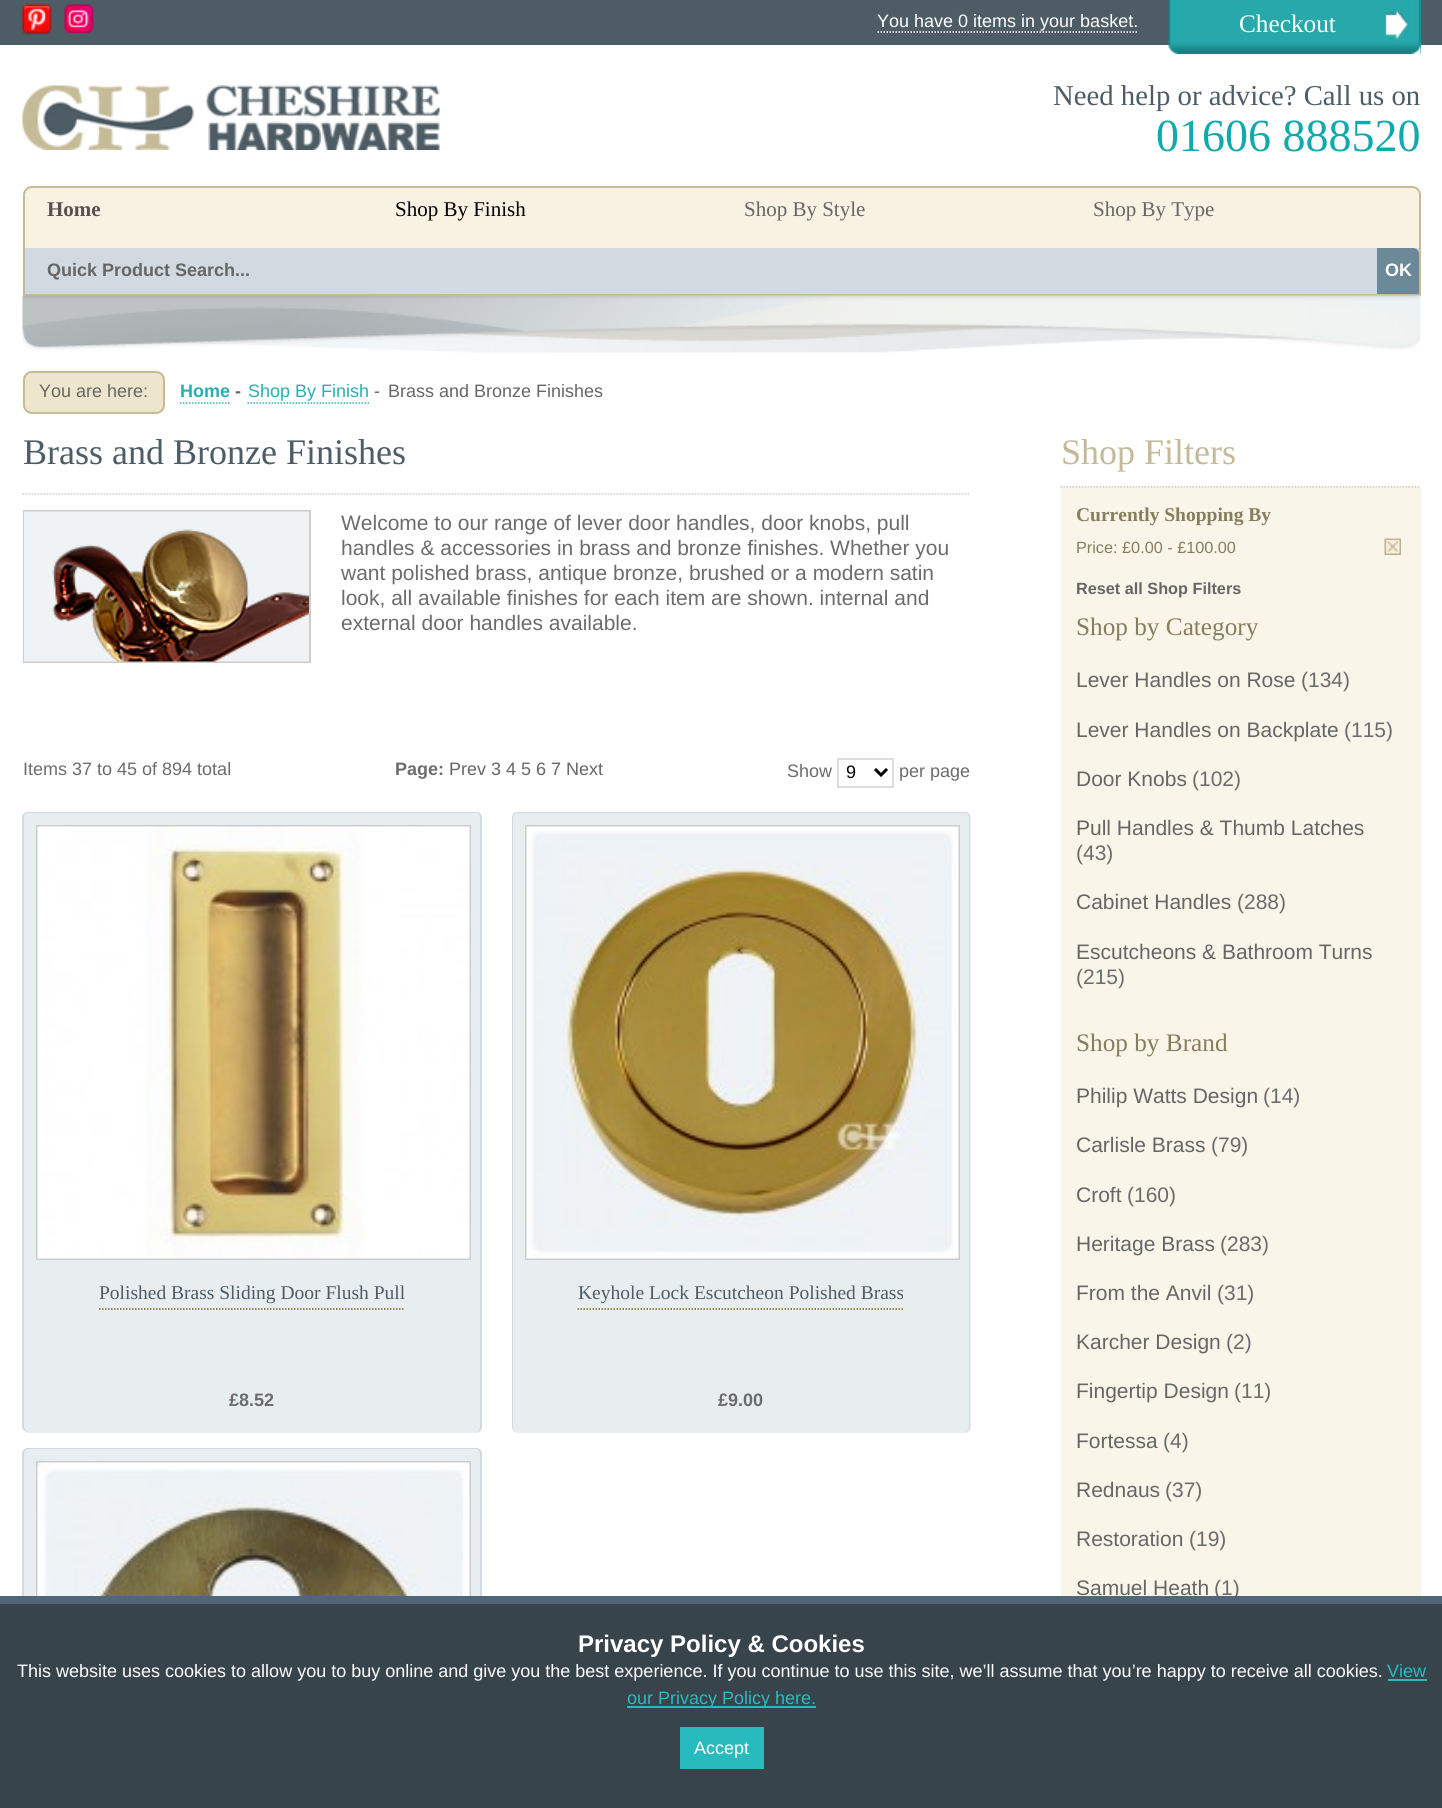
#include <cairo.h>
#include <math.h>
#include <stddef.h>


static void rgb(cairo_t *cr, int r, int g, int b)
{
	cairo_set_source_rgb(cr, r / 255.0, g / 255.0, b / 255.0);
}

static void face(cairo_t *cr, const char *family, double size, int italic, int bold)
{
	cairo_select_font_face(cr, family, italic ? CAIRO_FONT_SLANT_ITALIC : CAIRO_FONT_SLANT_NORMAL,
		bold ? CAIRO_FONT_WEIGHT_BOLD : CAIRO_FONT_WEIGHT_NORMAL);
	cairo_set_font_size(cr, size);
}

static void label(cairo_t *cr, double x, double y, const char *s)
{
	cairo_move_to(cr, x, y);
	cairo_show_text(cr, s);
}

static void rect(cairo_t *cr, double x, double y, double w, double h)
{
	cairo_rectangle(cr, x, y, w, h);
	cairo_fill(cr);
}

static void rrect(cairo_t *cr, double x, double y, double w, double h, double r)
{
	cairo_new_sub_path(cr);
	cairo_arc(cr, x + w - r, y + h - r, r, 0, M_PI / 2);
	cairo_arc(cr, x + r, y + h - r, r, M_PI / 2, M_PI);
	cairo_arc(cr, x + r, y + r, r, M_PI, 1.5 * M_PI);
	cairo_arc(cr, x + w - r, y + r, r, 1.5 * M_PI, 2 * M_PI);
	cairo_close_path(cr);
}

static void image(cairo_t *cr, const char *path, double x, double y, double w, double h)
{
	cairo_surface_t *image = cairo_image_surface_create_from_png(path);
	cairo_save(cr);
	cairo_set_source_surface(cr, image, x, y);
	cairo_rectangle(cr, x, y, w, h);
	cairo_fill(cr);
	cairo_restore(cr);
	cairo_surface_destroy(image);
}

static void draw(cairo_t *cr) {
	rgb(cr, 255, 255, 255);
	cairo_paint(cr);
	rgb(cr, 78, 92, 101);
	rect(cr, 0, 0, 1442, 45);
	image(cr, "image0.png", 22, 4, 30, 31);
	image(cr, "image1.png", 64, 4, 30, 30);
	face(cr, "Liberation Sans", 18, 0, 0);
	rgb(cr, 255, 255, 255);
	label(cr, 877, 27, "You have 0 items in your basket.");
	cairo_new_path(cr);
	cairo_move_to(cr, 877.5, 32);
	cairo_line_to(cr, 1138.5, 32);
	cairo_set_line_width(cr, 1.5);
	cairo_set_dash(cr, (double[]){1.5, 1.5}, 2, 0);
	cairo_stroke(cr);
	rgb(cr, 37, 168, 170);
	rect(cr, 1420, 0, 1, 54);
	image(cr, "image2.png", 1168, 0, 253, 54);
	face(cr, "Liberation Serif", 25.25, 0, 0);
	rgb(cr, 255, 255, 255);
	label(cr, 1239, 32, "Checkout");
	image(cr, "image3.png", 22, 85, 418, 65);
	face(cr, "Liberation Serif", 28.75, 0, 0);
	rgb(cr, 77, 92, 101);
	label(cr, 1053, 105, "Need help or advice? Call us on");
	face(cr, "Liberation Serif", 46, 0, 0);
	rgb(cr, 16, 169, 172);
	label(cr, 1156, 151, "01606 888520");
	rgb(cr, 248, 242, 226);
	cairo_new_path(cr);
	cairo_move_to(cr, 32, 187);
	cairo_line_to(cr, 1412, 187);
	cairo_curve_to(cr, 1416.5, 187, 1420, 190.5, 1420, 195);
	cairo_line_to(cr, 1420, 295);
	cairo_line_to(cr, 24, 295);
	cairo_line_to(cr, 24, 195);
	cairo_curve_to(cr, 24, 190.5, 27.5, 187, 32, 187);
	cairo_close_path(cr);
	cairo_fill_preserve(cr);
	rgb(cr, 197, 187, 151);
	cairo_set_line_width(cr, 2);
	cairo_set_dash(cr, NULL, 0, 0);
	cairo_stroke(cr);
	face(cr, "Liberation Serif", 21, 0, 1);
	rgb(cr, 88, 81, 81);
	label(cr, 47, 216, "Home");
	face(cr, "Liberation Serif", 21, 0, 0);
	rgb(cr, 0, 0, 0);
	label(cr, 395, 216, "Shop By Finish");
	rgb(cr, 102, 102, 102);
	label(cr, 744, 216, "Shop By Style");
	label(cr, 1093, 216, "Shop By Type");
	rgb(cr, 209, 218, 224);
	rect(cr, 25, 248, 1394, 46);
	face(cr, "Liberation Sans", 18, 0, 1);
	rgb(cr, 102, 102, 102);
	label(cr, 47, 276, "Quick Product Search...");
	rgb(cr, 108, 137, 151);
	cairo_new_path(cr);
	cairo_move_to(cr, 1377, 248);
	cairo_line_to(cr, 1413, 248);
	cairo_curve_to(cr, 1416.5, 248, 1419, 250.5, 1419, 254);
	cairo_line_to(cr, 1419, 294);
	cairo_line_to(cr, 1377, 294);
	cairo_close_path(cr);
	cairo_fill(cr);
	rgb(cr, 255, 255, 255);
	label(cr, 1385, 276, "OK");
	image(cr, "image4.png", 22, 295, 1399, 58);
	rgb(cr, 238, 230, 204);
	rrect(cr, 24, 372, 140, 41, 8);
	cairo_fill_preserve(cr);
	rgb(cr, 197, 187, 151);
	cairo_stroke(cr);
	face(cr, "Liberation Sans", 18, 0, 0);
	rgb(cr, 102, 102, 102);
	label(cr, 39, 397, "You are here:");
	face(cr, "Liberation Sans", 18, 0, 1);
	rgb(cr, 42, 174, 176);
	label(cr, 180, 397, "Home");
	cairo_new_path(cr);
	cairo_move_to(cr, 180, 403);
	cairo_line_to(cr, 229.5, 403);
	cairo_set_line_width(cr, 1.5);
	cairo_set_dash(cr, (double[]){1.5, 1.5}, 2, 0);
	cairo_stroke(cr);
	rgb(cr, 102, 102, 102);
	label(cr, 235, 397, "-");
	face(cr, "Liberation Sans", 18, 0, 0);
	rgb(cr, 42, 174, 176);
	label(cr, 248, 397, "Shop By Finish");
	cairo_new_path(cr);
	cairo_move_to(cr, 247.5, 403);
	cairo_line_to(cr, 369, 403);
	cairo_stroke(cr);
	rgb(cr, 102, 102, 102);
	label(cr, 374, 397, "-");
	label(cr, 388, 397, "Brass and Bronze Finishes");
	cairo_new_path(cr);
	cairo_move_to(cr, 22.5, 494);
	cairo_line_to(cr, 970.5, 494);
	rgb(cr, 204, 204, 204);
	cairo_stroke(cr);
	face(cr, "Liberation Serif", 36, 0, 0);
	rgb(cr, 77, 92, 101);
	label(cr, 23, 464, "Brass and Bronze Finishes");
	cairo_rectangle(cr, 24, 511, 286, 151);
	rgb(cr, 204, 204, 204);
	cairo_set_line_width(cr, 2);
	cairo_set_dash(cr, NULL, 0, 0);
	cairo_stroke(cr);
	image(cr, "image5.png", 24, 511, 285, 151);
	face(cr, "Liberation Sans", 21, 0, 0);
	rgb(cr, 108, 108, 108);
	label(cr, 341, 530, "Welcome to our range of lever door handles, door knobs, pull");
	label(cr, 341, 555, "handles & accessories in brass and bronze finishes. Whether you");
	label(cr, 341, 580, "want polished brass, antique bronze, brushed or a modern satin");
	label(cr, 341, 605, "look, all available finishes for each item are shown. internal and");
	label(cr, 341, 630, "external door handles available.");
	face(cr, "Liberation Sans", 18, 0, 0);
	label(cr, 23, 775, "Items 37 to 45 of 894 total");
	face(cr, "Liberation Sans", 18, 0, 1);
	label(cr, 395, 775, "Page:");
	face(cr, "Liberation Sans", 18, 0, 0);
	rgb(cr, 102, 102, 102);
	label(cr, 449, 775, "Prev 3 4");
	rgb(cr, 108, 108, 108);
	label(cr, 521, 775, "5");
	rgb(cr, 102, 102, 102);
	label(cr, 536, 775, "6 7 Next");
	rgb(cr, 108, 108, 108);
	label(cr, 787, 777, "Show");
	cairo_rectangle(cr, 838, 759, 55, 28);
	rgb(cr, 221, 221, 221);
	cairo_stroke(cr);
	cairo_new_path(cr);
	cairo_move_to(cr, 875, 769);
	cairo_line_to(cr, 881, 775);
	cairo_line_to(cr, 887, 769);
	rgb(cr, 0, 0, 0);
	cairo_set_line_width(cr, 3);
	cairo_stroke(cr);
	label(cr, 846, 778, "9");
	rgb(cr, 108, 108, 108);
	label(cr, 899, 777, "per page");
	rgb(cr, 232, 237, 240);
	rrect(cr, 23, 812, 459, 621, 6);
	cairo_fill(cr);
	rgb(cr, 209, 218, 224);
	cairo_set_fill_rule(cr, CAIRO_FILL_RULE_EVEN_ODD);
	cairo_new_path(cr);
	cairo_move_to(cr, 28, 812);
	cairo_line_to(cr, 476, 812);
	cairo_curve_to(cr, 479, 812, 482, 814, 482, 818);
	cairo_line_to(cr, 482, 1426);
	cairo_curve_to(cr, 482, 1430, 479, 1432, 476, 1432);
	cairo_line_to(cr, 28, 1432);
	cairo_curve_to(cr, 25, 1432, 22, 1430, 22, 1426);
	cairo_line_to(cr, 22, 818);
	cairo_curve_to(cr, 22, 814, 25, 812, 28, 812);
	cairo_close_path(cr);
	cairo_move_to(cr, 28, 813);
	cairo_line_to(cr, 476, 813);
	cairo_curve_to(cr, 478, 813, 480, 815, 480, 818);
	cairo_line_to(cr, 480, 1426);
	cairo_curve_to(cr, 480, 1430, 478, 1432, 476, 1432);
	cairo_line_to(cr, 28, 1432);
	cairo_curve_to(cr, 26, 1432, 24, 1430, 24, 1426);
	cairo_line_to(cr, 24, 818);
	cairo_curve_to(cr, 24, 815, 26, 813, 28, 813);
	cairo_close_path(cr);
	cairo_fill(cr);
	cairo_rectangle(cr, 37, 826, 433, 433);
	rgb(cr, 204, 204, 204);
	cairo_set_line_width(cr, 2);
	cairo_stroke(cr);
	image(cr, "image6.png", 37, 826, 433, 433);
	face(cr, "Liberation Serif", 19.5, 0, 0);
	rgb(cr, 77, 92, 101);
	label(cr, 99, 1299, "Polished Brass Sliding Door Flush Pull");
	cairo_new_path(cr);
	cairo_move_to(cr, 99, 1309);
	cairo_line_to(cr, 405, 1309);
	rgb(cr, 123, 102, 29);
	cairo_set_line_width(cr, 1.5);
	cairo_set_dash(cr, (double[]){1.5, 1.5}, 2, 0);
	cairo_stroke(cr);
	face(cr, "Liberation Sans", 18, 0, 1);
	rgb(cr, 108, 108, 108);
	label(cr, 229, 1406, "£8.52");
	rgb(cr, 232, 237, 240);
	rrect(cr, 512, 812, 459, 621, 6);
	cairo_fill(cr);
	rgb(cr, 209, 218, 224);
	cairo_new_path(cr);
	cairo_move_to(cr, 518, 812);
	cairo_line_to(cr, 964, 812);
	cairo_curve_to(cr, 968, 812, 970, 814, 970, 818);
	cairo_line_to(cr, 970, 1426);
	cairo_curve_to(cr, 970, 1430, 968, 1432, 964, 1432);
	cairo_line_to(cr, 518, 1432);
	cairo_curve_to(cr, 514, 1432, 512, 1430, 512, 1426);
	cairo_line_to(cr, 512, 818);
	cairo_curve_to(cr, 512, 814, 514, 812, 518, 812);
	cairo_close_path(cr);
	cairo_move_to(cr, 518, 813);
	cairo_line_to(cr, 964, 813);
	cairo_curve_to(cr, 967, 813, 969, 815, 969, 818);
	cairo_line_to(cr, 969, 1426);
	cairo_curve_to(cr, 969, 1430, 967, 1432, 964, 1432);
	cairo_line_to(cr, 518, 1432);
	cairo_curve_to(cr, 515, 1432, 513, 1430, 513, 1426);
	cairo_line_to(cr, 513, 818);
	cairo_curve_to(cr, 513, 815, 515, 813, 518, 813);
	cairo_close_path(cr);
	cairo_fill(cr);
	cairo_rectangle(cr, 526, 826, 433, 433);
	rgb(cr, 204, 204, 204);
	cairo_set_line_width(cr, 2);
	cairo_set_dash(cr, NULL, 0, 0);
	cairo_stroke(cr);
	image(cr, "image7.png", 526, 826, 433, 433);
	face(cr, "Liberation Serif", 19.5, 0, 0);
	rgb(cr, 77, 92, 101);
	label(cr, 578, 1299, "Keyhole Lock Escutcheon Polished Brass");
	cairo_new_path(cr);
	cairo_move_to(cr, 577.5, 1309);
	cairo_line_to(cr, 904.5, 1309);
	rgb(cr, 123, 102, 29);
	cairo_set_line_width(cr, 1.5);
	cairo_set_dash(cr, (double[]){1.5, 1.5}, 2, 0);
	cairo_stroke(cr);
	face(cr, "Liberation Sans", 18, 0, 1);
	rgb(cr, 108, 108, 108);
	label(cr, 718, 1406, "£9.00");
	rgb(cr, 232, 237, 240);
	rrect(cr, 23, 1448, 459, 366, 6);
	cairo_fill(cr);
	rgb(cr, 209, 218, 224);
	cairo_new_path(cr);
	cairo_move_to(cr, 28, 1448);
	cairo_line_to(cr, 476, 1448);
	cairo_curve_to(cr, 479, 1448, 482, 1450, 482, 1454);
	cairo_line_to(cr, 482, 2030);
	cairo_curve_to(cr, 482, 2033, 479, 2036, 476, 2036);
	cairo_line_to(cr, 28, 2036);
	cairo_curve_to(cr, 25, 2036, 22, 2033, 22, 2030);
	cairo_line_to(cr, 22, 1454);
	cairo_curve_to(cr, 22, 1450, 25, 1448, 28, 1448);
	cairo_close_path(cr);
	cairo_move_to(cr, 28, 1449);
	cairo_line_to(cr, 476, 1449);
	cairo_curve_to(cr, 478, 1449, 480, 1451, 480, 1454);
	cairo_line_to(cr, 480, 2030);
	cairo_curve_to(cr, 480, 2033, 478, 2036, 476, 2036);
	cairo_line_to(cr, 28, 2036);
	cairo_curve_to(cr, 26, 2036, 24, 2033, 24, 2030);
	cairo_line_to(cr, 24, 1454);
	cairo_curve_to(cr, 24, 1451, 26, 1449, 28, 1449);
	cairo_close_path(cr);
	cairo_fill(cr);
	cairo_rectangle(cr, 37, 1462, 433, 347);
	rgb(cr, 204, 204, 204);
	cairo_set_line_width(cr, 2);
	cairo_set_dash(cr, NULL, 0, 0);
	cairo_stroke(cr);
	image(cr, "image8.png", 37, 1462, 433, 134);
	face(cr, "Liberation Serif", 36, 0, 0);
	rgb(cr, 195, 186, 153);
	label(cr, 1061, 464, "Shop Filters");
	rgb(cr, 249, 245, 233);
	rect(cr, 1061, 486, 360, 1110);
	cairo_new_path(cr);
	cairo_move_to(cr, 1060.5, 487);
	cairo_line_to(cr, 1420.5, 487);
	rgb(cr, 202, 206, 208);
	cairo_set_line_width(cr, 1.5);
	cairo_set_dash(cr, (double[]){1.5, 1.5}, 2, 0);
	cairo_stroke(cr);
	face(cr, "Liberation Serif", 19.5, 0, 1);
	rgb(cr, 134, 125, 94);
	label(cr, 1076, 521, "Currently Shopping By");
	face(cr, "Liberation Sans", 16.25, 0, 0);
	label(cr, 1076, 553, "Price: £0.00 - £100.00");
	image(cr, "image9.png", 1384, 538, 17, 17);
	face(cr, "Liberation Sans", 16.25, 0, 1);
	rgb(cr, 102, 102, 102);
	label(cr, 1076, 594, "Reset all Shop Filters");
	face(cr, "Liberation Serif", 25.25, 0, 0);
	rgb(cr, 134, 125, 94);
	label(cr, 1076, 635, "Shop by Category");
	face(cr, "Liberation Sans", 21, 0, 0);
	rgb(cr, 102, 102, 102);
	label(cr, 1076, 687, "Lever Handles on Rose");
	rgb(cr, 108, 108, 108);
	label(cr, 1301, 687, "(134)");
	rgb(cr, 102, 102, 102);
	label(cr, 1076, 737, "Lever Handles on Backplate");
	rgb(cr, 108, 108, 108);
	label(cr, 1344, 737, "(115)");
	rgb(cr, 102, 102, 102);
	label(cr, 1076, 786, "Door Knobs");
	rgb(cr, 108, 108, 108);
	label(cr, 1192, 786, "(102)");
	rgb(cr, 102, 102, 102);
	label(cr, 1076, 835, "Pull Handles & Thumb Latches");
	rgb(cr, 108, 108, 108);
	label(cr, 1076, 860, "(43)");
	rgb(cr, 102, 102, 102);
	label(cr, 1076, 909, "Cabinet Handles");
	rgb(cr, 108, 108, 108);
	label(cr, 1237, 909, "(288)");
	rgb(cr, 102, 102, 102);
	label(cr, 1076, 959, "Escutcheons & Bathroom Turns");
	rgb(cr, 108, 108, 108);
	label(cr, 1076, 984, "(215)");
	face(cr, "Liberation Serif", 25.25, 0, 0);
	rgb(cr, 134, 125, 94);
	label(cr, 1076, 1051, "Shop by Brand");
	face(cr, "Liberation Sans", 21, 0, 0);
	rgb(cr, 102, 102, 102);
	label(cr, 1076, 1103, "Philip Watts Design");
	rgb(cr, 108, 108, 108);
	label(cr, 1263, 1103, "(14)");
	rgb(cr, 102, 102, 102);
	label(cr, 1076, 1152, "Carlisle Brass");
	rgb(cr, 108, 108, 108);
	label(cr, 1211, 1152, "(79)");
	rgb(cr, 102, 102, 102);
	label(cr, 1076, 1202, "Croft");
	rgb(cr, 108, 108, 108);
	label(cr, 1127, 1202, "(160)");
	rgb(cr, 102, 102, 102);
	label(cr, 1076, 1251, "Heritage Brass");
	rgb(cr, 108, 108, 108);
	label(cr, 1220, 1251, "(283)");
	rgb(cr, 102, 102, 102);
	label(cr, 1076, 1300, "From the Anvil");
	rgb(cr, 108, 108, 108);
	label(cr, 1217, 1300, "(31)");
	rgb(cr, 102, 102, 102);
	label(cr, 1076, 1349, "Karcher Design");
	rgb(cr, 108, 108, 108);
	label(cr, 1226, 1349, "(2)");
	rgb(cr, 102, 102, 102);
	label(cr, 1076, 1398, "Fingertip Design");
	rgb(cr, 108, 108, 108);
	label(cr, 1234, 1398, "(11)");
	rgb(cr, 102, 102, 102);
	label(cr, 1076, 1448, "Fortessa");
	rgb(cr, 108, 108, 108);
	label(cr, 1163, 1448, "(4)");
	rgb(cr, 102, 102, 102);
	label(cr, 1076, 1497, "Rednaus");
	rgb(cr, 108, 108, 108);
	label(cr, 1165, 1497, "(37)");
	rgb(cr, 102, 102, 102);
	label(cr, 1076, 1546, "Restoration");
	rgb(cr, 108, 108, 108);
	label(cr, 1189, 1546, "(19)");
	rgb(cr, 102, 102, 102);
	label(cr, 1076, 1595, "Samuel Heath");
	rgb(cr, 108, 108, 108);
	label(cr, 1214, 1595, "(1)");
	rgb(cr, 56, 68, 76);
	rect(cr, 0, 1604, 1442, 204);
	rgb(cr, 81, 103, 120);
	rect(cr, 0, 1596, 1442, 8);
	face(cr, "Liberation Sans", 24, 0, 1);
	rgb(cr, 255, 255, 255);
	label(cr, 578, 1652, "Privacy Policy & Cookies");
	face(cr, "Liberation Sans", 18, 0, 0);
	label(cr, 17, 1677, "This website uses cookies to allow you to buy online and give you the best experience. If you continue to use this site, we’ll assume that you’re happy to receive all cookies.");
	rgb(cr, 40, 187, 189);
	label(cr, 1387, 1677, "View");
	rect(cr, 1388, 1679, 39, 2);
	rect(cr, 627, 1706, 189, 2);
	label(cr, 627, 1704, "our Privacy Policy here.");
	rect(cr, 680, 1727, 84, 42);
	rgb(cr, 255, 255, 255);
	label(cr, 694, 1754, "Accept");
}

int main(void) {
	cairo_surface_t *surface = cairo_image_surface_create(CAIRO_FORMAT_RGB24, 1442, 1808);
	cairo_t *cr = cairo_create(surface);
	cairo_font_options_t *options = cairo_font_options_create();
	cairo_font_options_set_hint_metrics(options, CAIRO_HINT_METRICS_OFF);
	cairo_font_options_set_hint_style(options, CAIRO_HINT_STYLE_NONE);
	cairo_set_font_options(cr, options);
	cairo_set_miter_limit(cr, 4);
	draw(cr);
	cairo_surface_write_to_png(surface, "render.png");
	cairo_font_options_destroy(options);
	cairo_destroy(cr);
	cairo_surface_destroy(surface);
	return 0;
}
